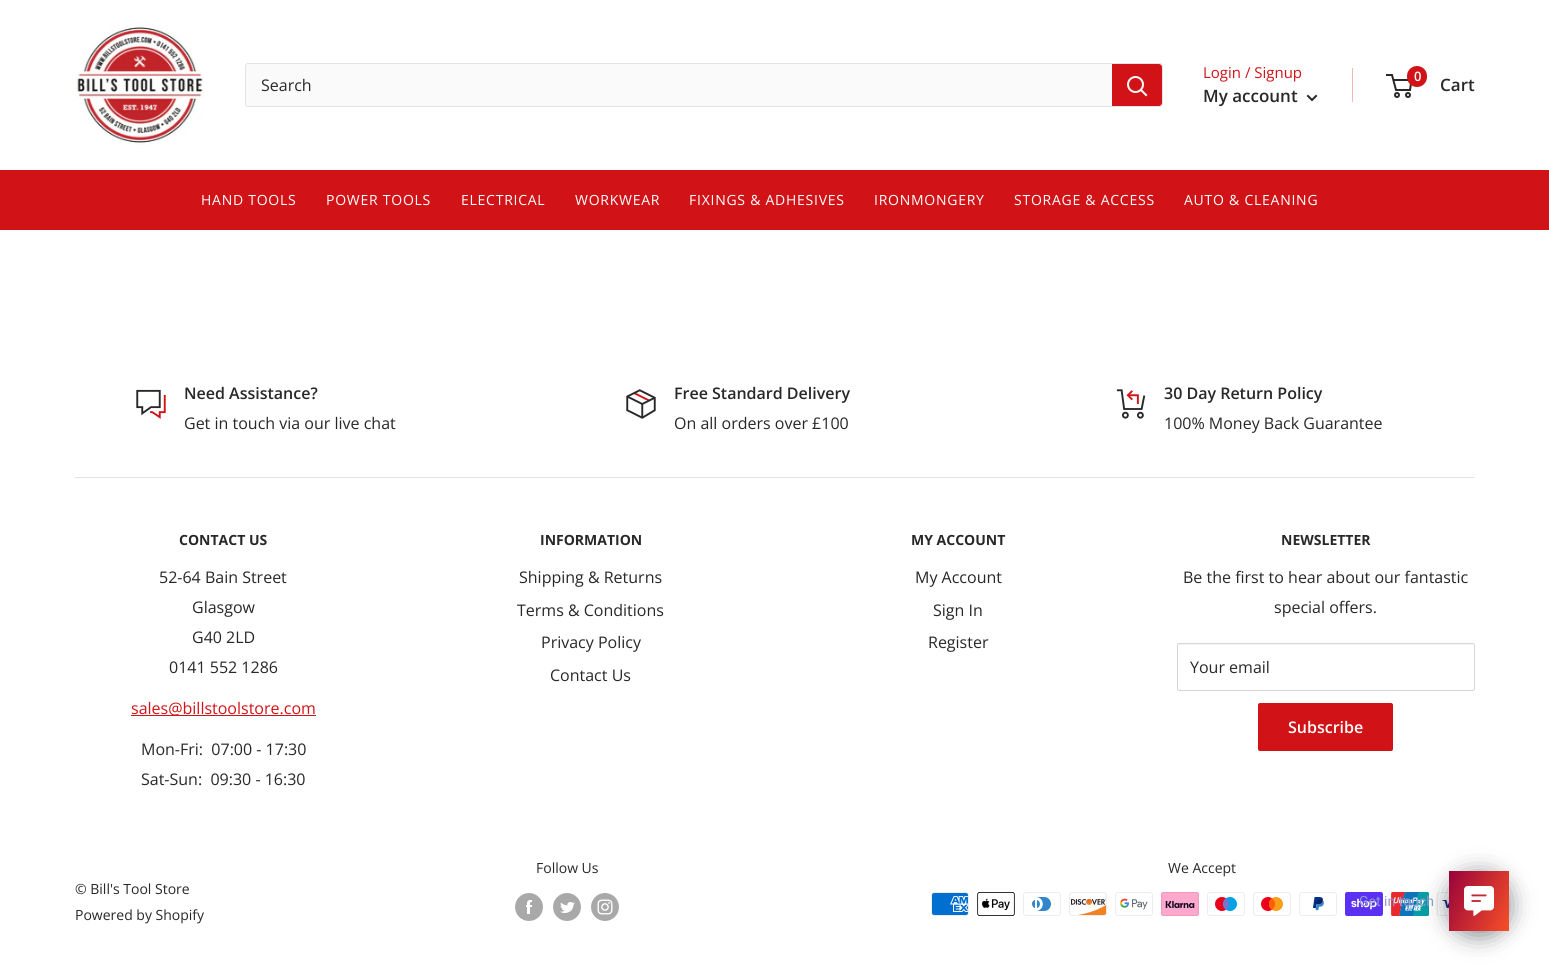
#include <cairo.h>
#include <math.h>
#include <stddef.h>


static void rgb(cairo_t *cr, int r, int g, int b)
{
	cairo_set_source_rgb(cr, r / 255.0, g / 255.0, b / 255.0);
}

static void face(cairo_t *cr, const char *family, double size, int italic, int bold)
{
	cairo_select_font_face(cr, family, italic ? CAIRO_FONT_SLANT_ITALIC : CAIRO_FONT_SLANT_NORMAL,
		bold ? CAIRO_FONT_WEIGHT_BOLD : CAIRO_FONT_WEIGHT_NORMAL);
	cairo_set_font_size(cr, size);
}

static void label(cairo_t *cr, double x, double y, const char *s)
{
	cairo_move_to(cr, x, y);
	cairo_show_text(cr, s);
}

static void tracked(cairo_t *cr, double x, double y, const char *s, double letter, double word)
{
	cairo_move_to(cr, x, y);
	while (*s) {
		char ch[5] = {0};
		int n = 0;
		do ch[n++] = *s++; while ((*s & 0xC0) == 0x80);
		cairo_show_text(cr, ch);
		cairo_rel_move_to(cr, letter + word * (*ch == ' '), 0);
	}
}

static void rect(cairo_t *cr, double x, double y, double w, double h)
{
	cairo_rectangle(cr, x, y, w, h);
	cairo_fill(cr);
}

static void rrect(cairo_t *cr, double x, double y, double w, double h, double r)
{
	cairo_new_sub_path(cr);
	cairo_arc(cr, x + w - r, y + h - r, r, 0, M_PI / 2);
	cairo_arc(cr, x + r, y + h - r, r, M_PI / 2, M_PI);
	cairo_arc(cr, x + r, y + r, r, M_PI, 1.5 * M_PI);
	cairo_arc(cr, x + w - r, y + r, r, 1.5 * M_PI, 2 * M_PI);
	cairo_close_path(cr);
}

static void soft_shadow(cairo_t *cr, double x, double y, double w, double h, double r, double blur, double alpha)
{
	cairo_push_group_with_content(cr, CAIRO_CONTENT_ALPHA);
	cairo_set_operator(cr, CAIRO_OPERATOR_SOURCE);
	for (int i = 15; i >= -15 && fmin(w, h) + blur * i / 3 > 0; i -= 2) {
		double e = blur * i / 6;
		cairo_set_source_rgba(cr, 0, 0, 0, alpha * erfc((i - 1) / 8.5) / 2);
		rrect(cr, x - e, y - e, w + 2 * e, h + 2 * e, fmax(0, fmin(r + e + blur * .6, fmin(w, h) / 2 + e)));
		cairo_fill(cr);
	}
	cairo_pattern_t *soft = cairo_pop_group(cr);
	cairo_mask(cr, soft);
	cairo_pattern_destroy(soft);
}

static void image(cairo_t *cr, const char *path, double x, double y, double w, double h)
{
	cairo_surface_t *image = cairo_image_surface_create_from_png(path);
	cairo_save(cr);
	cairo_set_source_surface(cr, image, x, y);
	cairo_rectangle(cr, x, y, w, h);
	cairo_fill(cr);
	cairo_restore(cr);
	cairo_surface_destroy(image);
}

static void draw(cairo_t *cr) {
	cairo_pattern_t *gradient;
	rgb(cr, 255, 255, 255);
	cairo_paint(cr);
	image(cr, "image0.png", 75, 27, 129, 118);
	rgb(cr, 250, 250, 250);
	rrect(cr, 245.5, 63.5, 917, 43, 2.5);
	cairo_fill_preserve(cr);
	rgb(cr, 225, 227, 228);
	cairo_set_line_width(cr, 1);
	cairo_stroke(cr);
	face(cr, "Open Sans", 16, 0, 0);
	rgb(cr, 40, 40, 40);
	label(cr, 261, 91, "Search");
	rgb(cr, 209, 19, 23);
	cairo_new_path(cr);
	cairo_move_to(cr, 1112, 64);
	cairo_line_to(cr, 1159, 64);
	cairo_curve_to(cr, 1160.5, 64, 1162, 65.5, 1162, 67);
	cairo_line_to(cr, 1162, 103);
	cairo_curve_to(cr, 1162, 104.5, 1160.5, 106, 1159, 106);
	cairo_line_to(cr, 1112, 106);
	cairo_close_path(cr);
	cairo_fill(cr);
	cairo_new_path(cr);
	cairo_move_to(cr, 1146, 95);
	cairo_line_to(cr, 1141, 90);
	rgb(cr, 250, 250, 250);
	cairo_set_line_width(cr, 2);
	cairo_set_line_cap(cr, CAIRO_LINE_CAP_SQUARE);
	cairo_stroke(cr);
	cairo_arc(cr, 1135.5, 84.5, 7.5, 0, 2 * M_PI);
	cairo_set_line_cap(cr, CAIRO_LINE_CAP_BUTT);
	cairo_stroke(cr);
	face(cr, "Open Sans", 15, 0, 0);
	rgb(cr, 209, 19, 23);
	label(cr, 1203, 78, "Login / Signup");
	rgb(cr, 241, 184, 185);
	rect(cr, 1352, 68, 1, 34);
	face(cr, "Open Sans SemiBold", 17, 0, 0);
	rgb(cr, 40, 40, 40);
	label(cr, 1203, 102, "My account");
	cairo_new_path(cr);
	cairo_move_to(cr, 1316, 96);
	cairo_line_to(cr, 1312, 100);
	cairo_line_to(cr, 1308, 96);
	cairo_set_line_cap(cr, CAIRO_LINE_CAP_SQUARE);
	cairo_stroke(cr);
	cairo_arc(cr, 1397, 95, 2, 0, 2 * M_PI);
	cairo_set_line_cap(cr, CAIRO_LINE_CAP_BUTT);
	cairo_stroke(cr);
	cairo_arc(cr, 1408, 95, 2, 0, 2 * M_PI);
	cairo_stroke(cr);
	cairo_new_path(cr);
	cairo_move_to(cr, 1393.5, 80);
	cairo_line_to(cr, 1411.5, 80);
	cairo_line_to(cr, 1410, 90);
	cairo_line_to(cr, 1396, 90);
	cairo_line_to(cr, 1392, 75);
	cairo_line_to(cr, 1386, 75);
	cairo_stroke(cr);
	rgb(cr, 209, 19, 23);
	rrect(cr, 1407, 66, 20, 21, 10);
	cairo_fill(cr);
	face(cr, "Open Sans SemiBold", 13, 0, 0);
	rgb(cr, 255, 255, 255);
	label(cr, 1414, 81, "0");
	face(cr, "Open Sans SemiBold", 17, 0, 0);
	rgb(cr, 40, 40, 40);
	label(cr, 1440, 91, "Cart");
	rgb(cr, 209, 19, 23);
	rect(cr, 0, 170, 1549, 60);
	face(cr, "Open Sans", 14, 0, 0);
	rgb(cr, 255, 255, 255);
	tracked(cr, 201, 205, "HAND TOOLS", 0.75, 0);
	tracked(cr, 326, 205, "POWER TOOLS", 0.75, 0);
	tracked(cr, 461, 205, "ELECTRICAL", 0.75, 0);
	tracked(cr, 575, 205, "WORKWEAR", 0.75, 0);
	tracked(cr, 689, 205, "FIXINGS & ADHESIVES", 0.75, 0);
	tracked(cr, 874, 205, "IRONMONGERY", 0.75, 0);
	tracked(cr, 1014, 205, "STORAGE & ACCESS", 0.75, 0);
	tracked(cr, 1184, 205, "AUTO & CLEANING", 0.75, 0);
	image(cr, "image1.png", 136, 389, 30, 30);
	face(cr, "Open Sans SemiBold", 16, 0, 0);
	rgb(cr, 40, 40, 40);
	label(cr, 184, 399, "Need Assistance?");
	face(cr, "Open Sans", 16, 0, 0);
	label(cr, 184, 429, "Get in touch via our live chat");
	image(cr, "image2.png", 626, 389, 30, 30);
	face(cr, "Open Sans SemiBold", 16, 0, 0);
	label(cr, 674, 399, "Free Standard Delivery");
	face(cr, "Open Sans", 16, 0, 0);
	label(cr, 674, 429, "On all orders over £100");
	image(cr, "image3.png", 1116, 389, 30, 30);
	face(cr, "Open Sans SemiBold", 16, 0, 0);
	label(cr, 1164, 399, "30 Day Return Policy");
	face(cr, "Open Sans", 16, 0, 0);
	label(cr, 1164, 429, "100% Money Back Guarantee");
	rgb(cr, 225, 227, 228);
	rect(cr, 75, 477, 1400, 1);
	face(cr, "Open Sans", 14, 0, 1);
	rgb(cr, 40, 40, 40);
	label(cr, 179, 545, "CONTACT US");
	face(cr, "Open Sans", 16, 0, 0);
	label(cr, 159, 583, "52-64 Bain Street");
	label(cr, 192, 613, "Glasgow");
	label(cr, 192, 643, "G40 2LD");
	label(cr, 169, 673, "0141 552 1286");
	rgb(cr, 209, 19, 23);
	rect(cr, 131, 715, 185, 1);
	label(cr, 131, 714, "sales@billstoolstore.com");
	rgb(cr, 40, 40, 40);
	label(cr, 141, 755, "Mon-Fri:  07:00 - 17:30");
	label(cr, 141, 785, "Sat-Sun:  09:30 - 16:30");
	face(cr, "Open Sans", 14, 0, 1);
	label(cr, 540, 545, "INFORMATION");
	face(cr, "Open Sans", 16, 0, 0);
	label(cr, 519, 583, "Shipping & Returns");
	label(cr, 517, 616, "Terms & Conditions");
	label(cr, 541, 648, "Privacy Policy");
	label(cr, 550, 681, "Contact Us");
	face(cr, "Open Sans", 14, 0, 1);
	label(cr, 911, 545, "MY ACCOUNT");
	face(cr, "Open Sans", 16, 0, 0);
	label(cr, 915, 583, "My Account");
	label(cr, 933, 616, "Sign In");
	label(cr, 928, 648, "Register");
	face(cr, "Open Sans", 14, 0, 1);
	label(cr, 1281, 545, "NEWSLETTER");
	face(cr, "Open Sans", 16, 0, 0);
	label(cr, 1183, 583, "Be the first to hear about our fantastic");
	label(cr, 1274, 613, "special offers.");
	rgb(cr, 244, 245, 245);
	cairo_new_path(cr);
	cairo_move_to(cr, 1179, 645);
	cairo_line_to(cr, 1473, 645);
	cairo_curve_to(cr, 1474, 645, 1474, 645, 1474, 646);
	cairo_curve_to(cr, 1474, 645, 1474, 644, 1473, 644);
	cairo_line_to(cr, 1179, 644);
	cairo_line_to(cr, 1178, 644);
	cairo_line_to(cr, 1178, 646);
	cairo_curve_to(cr, 1178, 645, 1178, 645, 1179, 645);
	cairo_close_path(cr);
	cairo_fill(cr);
	rrect(cr, 1177.5, 643.5, 297, 47, 1.5);
	rgb(cr, 212, 214, 216);
	cairo_set_line_width(cr, 1);
	cairo_stroke(cr);
	rgb(cr, 40, 40, 40);
	label(cr, 1190, 673, "Your email");
	rgb(cr, 209, 19, 23);
	rrect(cr, 1258, 703, 135, 48, 2);
	cairo_fill(cr);
	face(cr, "Open Sans SemiBold", 16, 0, 0);
	rgb(cr, 255, 255, 255);
	label(cr, 1288, 733, "Subscribe");
	face(cr, "Open Sans", 14, 0, 0);
	rgb(cr, 40, 40, 40);
	label(cr, 536, 873, "Follow Us");
	image(cr, "image4.png", 515, 893, 28, 28);
	image(cr, "image5.png", 553, 893, 28, 28);
	image(cr, "image6.png", 591, 893, 28, 28);
	label(cr, 1168, 873, "We Accept");
	image(cr, "image7.png", 931, 892, 38, 24);
	image(cr, "image8.png", 977, 892, 38, 24);
	image(cr, "image9.png", 1023, 892, 38, 24);
	image(cr, "image10.png", 1069, 892, 38, 24);
	image(cr, "image11.png", 1115, 892, 38, 24);
	image(cr, "image12.png", 1161, 892, 38, 24);
	image(cr, "image13.png", 1207, 892, 38, 24);
	image(cr, "image14.png", 1253, 892, 38, 24);
	image(cr, "image15.png", 1299, 892, 38, 24);
	image(cr, "image16.png", 1345, 892, 38, 24);
	image(cr, "image17.png", 1391, 892, 38, 24);
	image(cr, "image18.png", 1437, 892, 12, 24);
	label(cr, 75, 894, "© Bill's Tool Store");
	label(cr, 75, 920, "Powered by Shopify");
	rgb(cr, 2, 6, 16);
	soft_shadow(cr, 1449, 875, 60, 60, 30, 12, 0.5);
	gradient = cairo_pattern_create_linear(1443, 884, 1515, 918);
	cairo_pattern_add_color_stop_rgba(gradient, 0, 0.596, 0.012, 0.227, 1);
	cairo_pattern_add_color_stop_rgba(gradient, 1, 0.969, 0.31, 0.157, 1);
	cairo_set_source(cr, gradient);
	cairo_pattern_destroy(gradient);
	rect(cr, 1449, 871, 60, 60);
	face(cr, "Roboto", 14, 0, 0);
	rgb(cr, 144, 151, 208);
	label(cr, 1359, 906, "Get in touch");
	image(cr, "image19.png", 1464, 886, 30, 30);
}

int main(void) {
	cairo_surface_t *surface = cairo_image_surface_create(CAIRO_FORMAT_RGB24, 1549, 971);
	cairo_t *cr = cairo_create(surface);
	cairo_font_options_t *options = cairo_font_options_create();
	cairo_font_options_set_hint_metrics(options, CAIRO_HINT_METRICS_OFF);
	cairo_font_options_set_hint_style(options, CAIRO_HINT_STYLE_NONE);
	cairo_set_font_options(cr, options);
	cairo_set_miter_limit(cr, 4);
	draw(cr);
	cairo_surface_write_to_png(surface, "render.png");
	cairo_font_options_destroy(options);
	cairo_destroy(cr);
	cairo_surface_destroy(surface);
	return 0;
}
